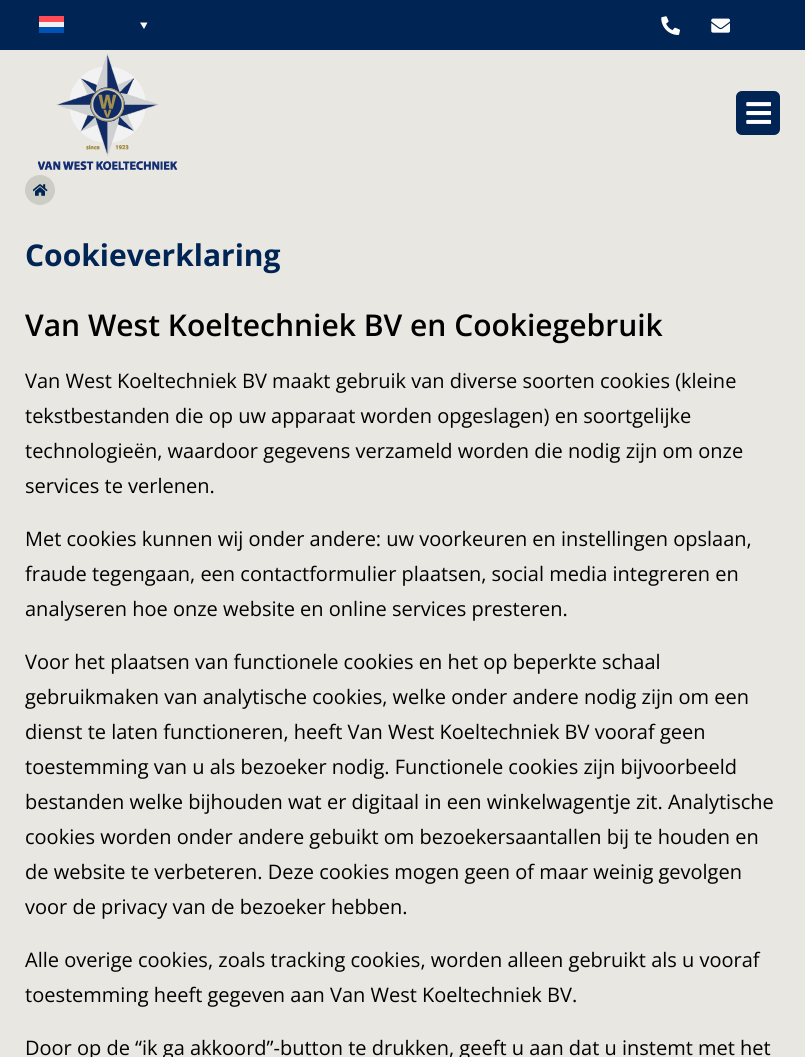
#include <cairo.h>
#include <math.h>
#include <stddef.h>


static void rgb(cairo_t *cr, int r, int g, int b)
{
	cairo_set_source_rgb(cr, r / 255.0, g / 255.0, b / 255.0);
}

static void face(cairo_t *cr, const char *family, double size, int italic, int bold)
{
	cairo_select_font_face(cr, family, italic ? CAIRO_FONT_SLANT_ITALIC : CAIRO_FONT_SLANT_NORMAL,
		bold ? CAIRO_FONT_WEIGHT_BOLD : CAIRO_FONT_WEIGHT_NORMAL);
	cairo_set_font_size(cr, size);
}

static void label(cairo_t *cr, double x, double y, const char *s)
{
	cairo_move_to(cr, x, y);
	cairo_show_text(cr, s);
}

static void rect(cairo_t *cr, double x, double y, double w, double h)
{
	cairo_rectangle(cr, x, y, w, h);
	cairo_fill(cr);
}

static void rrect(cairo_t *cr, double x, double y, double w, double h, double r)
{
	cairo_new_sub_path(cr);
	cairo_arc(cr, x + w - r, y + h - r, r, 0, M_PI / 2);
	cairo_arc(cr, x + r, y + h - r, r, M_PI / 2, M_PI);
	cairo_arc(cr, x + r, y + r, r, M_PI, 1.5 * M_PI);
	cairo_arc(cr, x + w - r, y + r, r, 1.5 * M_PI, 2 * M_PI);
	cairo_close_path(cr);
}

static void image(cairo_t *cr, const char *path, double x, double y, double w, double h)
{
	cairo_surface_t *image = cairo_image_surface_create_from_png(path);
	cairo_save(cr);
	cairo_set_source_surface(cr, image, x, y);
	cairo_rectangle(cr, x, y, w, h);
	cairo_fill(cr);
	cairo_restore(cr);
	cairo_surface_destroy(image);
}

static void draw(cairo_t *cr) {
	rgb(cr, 233, 231, 226);
	cairo_paint(cr);
	rgb(cr, 0, 37, 84);
	rect(cr, 0, 0, 805, 50);
	rgb(cr, 255, 75, 85);
	rect(cr, 39, 16, 25, 6);
	rgb(cr, 240, 240, 240);
	rect(cr, 39, 22, 25, 5);
	rgb(cr, 255, 255, 255);
	cairo_new_path(cr);
	cairo_move_to(cr, 140, 22.5);
	cairo_line_to(cr, 147.5, 22.5);
	cairo_line_to(cr, 144, 29);
	cairo_close_path(cr);
	cairo_fill(cr);
	rgb(cr, 0, 82, 180);
	rect(cr, 39, 27, 25, 6);
	image(cr, "image0.png", 661, 16, 19, 19);
	image(cr, "image1.png", 711, 18, 19, 15);
	image(cr, "image2.png", 38, 53, 140, 117);
	rgb(cr, 0, 37, 84);
	rrect(cr, 736, 91, 44, 44, 6);
	cairo_fill(cr);
	image(cr, "image3.png", 746, 102, 25, 22);
	rgb(cr, 204, 205, 196);
	cairo_arc(cr, 40, 190, 15, 0, 2 * M_PI);
	cairo_fill(cr);
	image(cr, "image4.png", 33, 184, 15, 12);
	face(cr, "Open Sans", 30, 0, 1);
	rgb(cr, 0, 37, 84);
	label(cr, 25, 266, "Cookieverklaring");
	face(cr, "Open Sans SemiBold", 30, 0, 0);
	rgb(cr, 0, 0, 0);
	label(cr, 25, 336, "Van West Koeltechniek BV en Cookiegebruik");
	face(cr, "Open Sans", 20, 0, 0);
	label(cr, 25, 388, "Van West Koeltechniek BV maakt gebruik van diverse soorten cookies (kleine");
	label(cr, 25, 423, "tekstbestanden die op uw apparaat worden opgeslagen) en soortgelijke");
	label(cr, 25, 458, "technologieën, waardoor gegevens verzameld worden die nodig zijn om onze");
	label(cr, 25, 493, "services te verlenen.");
	label(cr, 25, 546, "Met cookies kunnen wij onder andere: uw voorkeuren en instellingen opslaan,");
	label(cr, 25, 581, "fraude tegengaan, een contactformulier plaatsen, social media integreren en");
	label(cr, 25, 616, "analyseren hoe onze website en online services presteren.");
	label(cr, 25, 669, "Voor het plaatsen van functionele cookies en het op beperkte schaal");
	label(cr, 25, 704, "gebruikmaken van analytische cookies, welke onder andere nodig zijn om een");
	label(cr, 25, 739, "dienst te laten functioneren, heeft Van West Koeltechniek BV vooraf geen");
	label(cr, 25, 774, "toestemming van u als bezoeker nodig. Functionele cookies zijn bijvoorbeeld");
	label(cr, 25, 809, "bestanden welke bijhouden wat er digitaal in een winkelwagentje zit. Analytische");
	label(cr, 25, 844, "cookies worden onder andere gebuikt om bezoekersaantallen bij te houden en");
	label(cr, 25, 879, "de website te verbeteren. Deze cookies mogen geen of maar weinig gevolgen");
	label(cr, 25, 914, "voor de privacy van de bezoeker hebben.");
	label(cr, 25, 967, "Alle overige cookies, zoals tracking cookies, worden alleen gebruikt als u vooraf");
	label(cr, 25, 1002, "toestemming heeft gegeven aan Van West Koeltechniek BV.");
	label(cr, 25, 1055, "Door op de “ik ga akkoord”-button te drukken, geeft u aan dat u instemt met het");
}

int main(void) {
	cairo_surface_t *surface = cairo_image_surface_create(CAIRO_FORMAT_RGB24, 805, 1057);
	cairo_t *cr = cairo_create(surface);
	cairo_font_options_t *options = cairo_font_options_create();
	cairo_font_options_set_hint_metrics(options, CAIRO_HINT_METRICS_OFF);
	cairo_font_options_set_hint_style(options, CAIRO_HINT_STYLE_NONE);
	cairo_set_font_options(cr, options);
	cairo_set_miter_limit(cr, 4);
	draw(cr);
	cairo_surface_write_to_png(surface, "render.png");
	cairo_font_options_destroy(options);
	cairo_destroy(cr);
	cairo_surface_destroy(surface);
	return 0;
}
